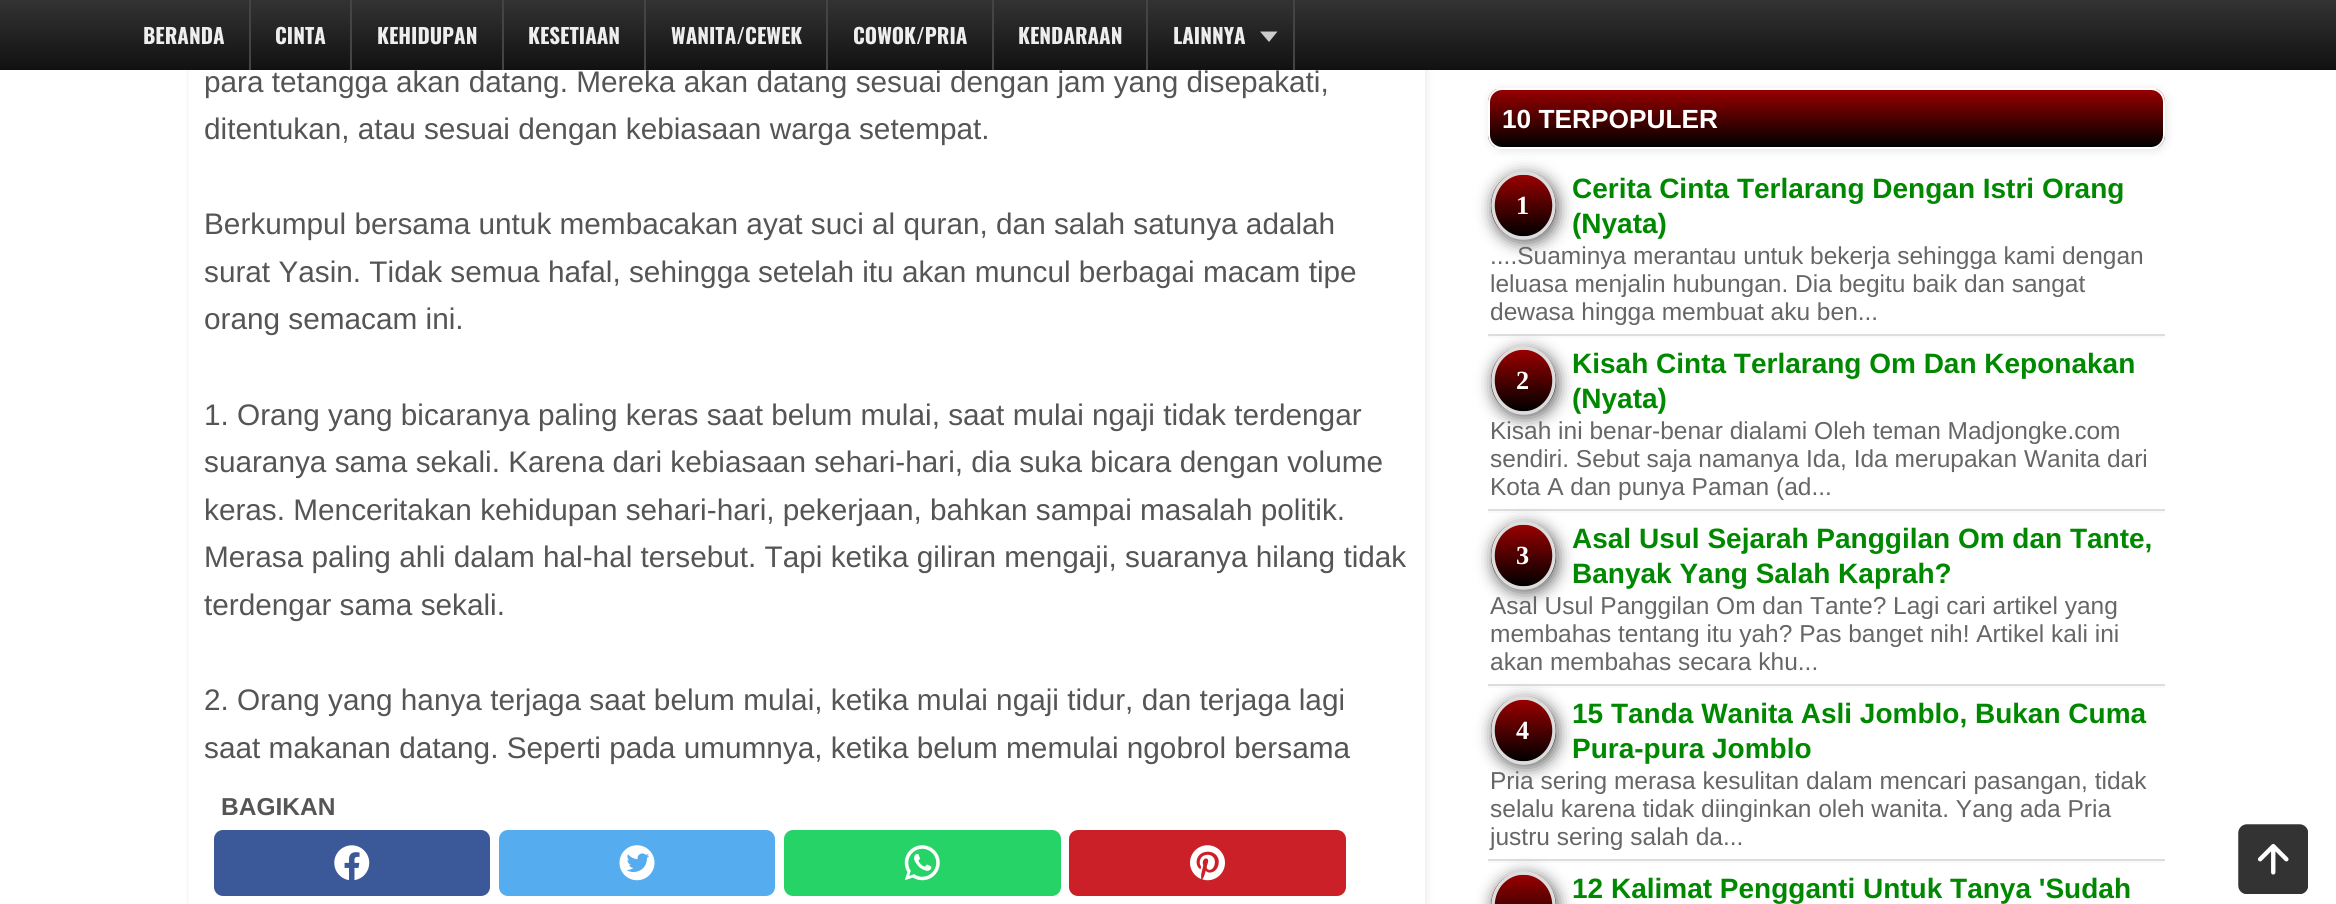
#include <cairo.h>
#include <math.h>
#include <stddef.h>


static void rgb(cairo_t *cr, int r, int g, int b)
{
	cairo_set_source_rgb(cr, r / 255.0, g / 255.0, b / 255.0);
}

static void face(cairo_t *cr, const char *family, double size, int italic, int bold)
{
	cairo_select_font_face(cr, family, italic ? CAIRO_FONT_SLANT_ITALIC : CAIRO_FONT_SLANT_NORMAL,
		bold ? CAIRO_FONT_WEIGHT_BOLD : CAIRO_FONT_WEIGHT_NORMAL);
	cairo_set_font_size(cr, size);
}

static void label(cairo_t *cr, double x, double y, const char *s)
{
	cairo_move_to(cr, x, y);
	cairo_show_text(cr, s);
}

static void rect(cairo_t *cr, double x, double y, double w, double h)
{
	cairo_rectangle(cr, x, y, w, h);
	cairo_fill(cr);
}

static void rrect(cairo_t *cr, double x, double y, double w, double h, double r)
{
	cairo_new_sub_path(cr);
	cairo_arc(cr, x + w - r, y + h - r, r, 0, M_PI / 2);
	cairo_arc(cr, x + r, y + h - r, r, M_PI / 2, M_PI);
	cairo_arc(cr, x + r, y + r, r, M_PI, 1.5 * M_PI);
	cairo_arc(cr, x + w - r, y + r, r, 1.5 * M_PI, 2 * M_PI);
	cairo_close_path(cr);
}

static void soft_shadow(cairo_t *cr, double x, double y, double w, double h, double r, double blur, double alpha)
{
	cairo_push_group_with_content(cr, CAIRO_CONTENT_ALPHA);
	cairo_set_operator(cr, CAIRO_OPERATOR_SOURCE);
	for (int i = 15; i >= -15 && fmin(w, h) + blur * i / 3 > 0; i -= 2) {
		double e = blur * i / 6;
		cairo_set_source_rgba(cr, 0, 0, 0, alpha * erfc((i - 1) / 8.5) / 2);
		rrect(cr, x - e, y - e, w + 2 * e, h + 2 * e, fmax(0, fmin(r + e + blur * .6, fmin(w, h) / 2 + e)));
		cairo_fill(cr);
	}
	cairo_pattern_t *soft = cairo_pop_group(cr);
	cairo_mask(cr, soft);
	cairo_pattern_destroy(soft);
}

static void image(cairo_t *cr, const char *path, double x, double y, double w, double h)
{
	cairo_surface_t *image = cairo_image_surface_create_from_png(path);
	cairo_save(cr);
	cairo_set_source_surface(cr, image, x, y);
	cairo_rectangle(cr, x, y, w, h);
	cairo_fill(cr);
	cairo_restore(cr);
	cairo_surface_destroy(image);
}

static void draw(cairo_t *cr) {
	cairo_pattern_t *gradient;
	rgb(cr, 255, 255, 255);
	cairo_paint(cr);
	rgb(cr, 1, 1, 1);
	soft_shadow(cr, 191, -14, 1235, 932, 0, 4.5, 0.1);
	gradient = cairo_pattern_create_linear(1168, 0, 1168, 70);
	cairo_pattern_add_color_stop_rgba(gradient, 0, 0.2, 0.2, 0.2, 1);
	cairo_pattern_add_color_stop_rgba(gradient, 1, 0.067, 0.067, 0.067, 1);
	cairo_set_source(cr, gradient);
	cairo_pattern_destroy(gradient);
	rect(cr, 0, 0, 2336, 70);
	rgb(cr, 68, 68, 68);
	rect(cr, 249, 0, 2, 70);
	face(cr, "Oswald", 21, 0, 1);
	rgb(cr, 238, 238, 238);
	label(cr, 143, 44, "BERANDA");
	rgb(cr, 68, 68, 68);
	rect(cr, 350, 0, 2, 70);
	rgb(cr, 238, 238, 238);
	label(cr, 275, 44, "CINTA");
	rgb(cr, 68, 68, 68);
	rect(cr, 502, 0, 2, 70);
	rgb(cr, 238, 238, 238);
	label(cr, 377, 44, "KEHIDUPAN");
	rgb(cr, 68, 68, 68);
	rect(cr, 644, 0, 2, 70);
	rgb(cr, 238, 238, 238);
	label(cr, 528, 44, "KESETIAAN");
	rgb(cr, 68, 68, 68);
	rect(cr, 826, 0, 2, 70);
	rgb(cr, 238, 238, 238);
	label(cr, 671, 44, "WANITA/CEWEK");
	rgb(cr, 68, 68, 68);
	rect(cr, 992, 0, 2, 70);
	rgb(cr, 238, 238, 238);
	label(cr, 853, 44, "COWOK/PRIA");
	rgb(cr, 68, 68, 68);
	rect(cr, 1146, 0, 2, 70);
	rgb(cr, 238, 238, 238);
	label(cr, 1018, 44, "KENDARAAN");
	rgb(cr, 68, 68, 68);
	rect(cr, 1293, 0, 2, 70);
	rgb(cr, 238, 238, 238);
	label(cr, 1173, 44, "LAINNYA");
	rgb(cr, 204, 204, 204);
	cairo_new_path(cr);
	cairo_move_to(cr, 1260, 31.5);
	cairo_line_to(cr, 1277.5, 31.5);
	cairo_line_to(cr, 1269, 42);
	cairo_close_path(cr);
	cairo_fill(cr);
	rgb(cr, 255, 255, 255);
	rect(cr, 189, 70, 1236, 834);
	face(cr, "Liberation Sans", 29.75, 0, 0);
	rgb(cr, 85, 85, 85);
	label(cr, 204, 92, "para tetangga akan datang. Mereka akan datang sesuai dengan jam yang disepakati,");
	label(cr, 204, 139, "ditentukan, atau sesuai dengan kebiasaan warga setempat.");
	label(cr, 204, 234, "Berkumpul bersama untuk membacakan ayat suci al quran, dan salah satunya adalah");
	label(cr, 204, 282, "surat Yasin. Tidak semua hafal, sehingga setelah itu akan muncul berbagai macam tipe");
	label(cr, 204, 329, "orang semacam ini.");
	label(cr, 204, 425, "1. Orang yang bicaranya paling keras saat belum mulai, saat mulai ngaji tidak terdengar");
	label(cr, 204, 472, "suaranya sama sekali. Karena dari kebiasaan sehari-hari, dia suka bicara dengan volume");
	label(cr, 204, 520, "keras. Menceritakan kehidupan sehari-hari, pekerjaan, bahkan sampai masalah politik.");
	label(cr, 204, 567, "Merasa paling ahli dalam hal-hal tersebut. Tapi ketika giliran mengaji, suaranya hilang tidak");
	label(cr, 204, 615, "terdengar sama sekali.");
	label(cr, 204, 710, "2. Orang yang hanya terjaga saat belum mulai, ketika mulai ngaji tidur, dan terjaga lagi");
	label(cr, 204, 758, "saat makanan datang. Seperti pada umumnya, ketika belum memulai ngobrol bersama");
	face(cr, "Liberation Sans", 24.5, 0, 1);
	label(cr, 221, 815, "BAGIKAN");
	rgb(cr, 59, 89, 152);
	rrect(cr, 214, 830, 276, 66, 9);
	cairo_fill(cr);
	image(cr, "image0.png", 334, 845, 36, 36);
	rgb(cr, 85, 172, 238);
	rrect(cr, 499, 830, 276, 66, 9);
	cairo_fill(cr);
	image(cr, "image1.png", 619, 845, 36, 36);
	rgb(cr, 37, 211, 102);
	rrect(cr, 784, 830, 277, 66, 9);
	cairo_fill(cr);
	image(cr, "image2.png", 904, 845, 36, 36);
	rgb(cr, 203, 32, 39);
	rrect(cr, 1069, 830, 277, 66, 9);
	cairo_fill(cr);
	image(cr, "image3.png", 1190, 845, 35, 36);
	rgb(cr, 1, 1, 1);
	soft_shadow(cr, 1489, 89, 678, 62, 14, 4.5, 0.1);
	cairo_save(cr);
	rrect(cr, 1488, 88, 677, 61, 14);
	cairo_clip(cr);
	gradient = cairo_pattern_create_linear(1826, 89, 1826, 147);
	cairo_pattern_add_color_stop_rgba(gradient, 0, 0.6, 0, 0, 1);
	cairo_pattern_add_color_stop_rgba(gradient, 1, 0, 0, 0, 1);
	cairo_set_source(cr, gradient);
	cairo_pattern_destroy(gradient);
	rect(cr, 1488, 89, 677, 58);
	cairo_restore(cr);
	rrect(cr, 1489, 89, 675, 59, 13);
	rgb(cr, 255, 255, 255);
	cairo_stroke(cr);
	face(cr, "Liberation Sans", 26.25, 0, 1);
	label(cr, 1502, 128, "10 TERPOPULER");
	rgb(cr, 221, 221, 221);
	rect(cr, 1488, 334, 677, 2);
	rgb(cr, 102, 102, 102);
	soft_shadow(cr, 1493, 175, 65, 68, 32.5, 8, 1);
	gradient = cairo_pattern_create_linear(1523, 175, 1523, 236);
	cairo_pattern_add_color_stop_rgba(gradient, 0, 0.6, 0, 0, 1);
	cairo_pattern_add_color_stop_rgba(gradient, 1, 0, 0, 0, 1);
	cairo_set_source(cr, gradient);
	cairo_pattern_destroy(gradient);
	cairo_new_path(cr);
	cairo_move_to(cr, 1509, 236);
	cairo_curve_to(cr, 1498, 230, 1491, 219, 1491, 206);
	cairo_curve_to(cr, 1491, 192, 1498, 181, 1509, 175);
	cairo_line_to(cr, 1538, 175);
	cairo_curve_to(cr, 1548, 181, 1556, 192, 1556, 206);
	cairo_curve_to(cr, 1556, 219, 1549, 230, 1538, 236);
	cairo_close_path(cr);
	cairo_fill(cr);
	cairo_new_path(cr);
	cairo_move_to(cr, 1523.5, 173);
	cairo_curve_to(cr, 1540.5, 173, 1554, 187.5, 1554, 205.5);
	cairo_curve_to(cr, 1554, 223.5, 1540.5, 238, 1523.5, 238);
	cairo_curve_to(cr, 1506.5, 238, 1493, 223.5, 1493, 205.5);
	cairo_curve_to(cr, 1493, 187.5, 1506.5, 173, 1523.5, 173);
	cairo_close_path(cr);
	rgb(cr, 221, 221, 221);
	cairo_set_line_width(cr, 3.5);
	cairo_stroke(cr);
	face(cr, "Liberation Serif", 26.25, 0, 1);
	rgb(cr, 255, 255, 255);
	label(cr, 1516, 214, "1");
	face(cr, "Liberation Sans", 28, 0, 1);
	rgb(cr, 0, 136, 0);
	label(cr, 1572, 198, "Cerita Cinta Terlarang Dengan Istri Orang");
	label(cr, 1572, 233, "(Nyata)");
	face(cr, "Liberation Sans", 24.5, 0, 0);
	rgb(cr, 102, 102, 102);
	label(cr, 1490, 264, "....Suaminya merantau untuk bekerja sehingga kami dengan");
	label(cr, 1490, 292, "leluasa menjalin hubungan. Dia begitu baik dan sangat");
	label(cr, 1490, 320, "dewasa hingga membuat aku ben...");
	rgb(cr, 250, 250, 250);
	rect(cr, 1488, 336, 677, 2);
	rgb(cr, 221, 221, 221);
	rect(cr, 1488, 509, 677, 2);
	rgb(cr, 102, 102, 102);
	soft_shadow(cr, 1493, 350, 65, 68, 32.5, 8, 1);
	gradient = cairo_pattern_create_linear(1523, 350, 1523, 411);
	cairo_pattern_add_color_stop_rgba(gradient, 0, 0.6, 0, 0, 1);
	cairo_pattern_add_color_stop_rgba(gradient, 1, 0, 0, 0, 1);
	cairo_set_source(cr, gradient);
	cairo_pattern_destroy(gradient);
	cairo_new_path(cr);
	cairo_move_to(cr, 1509, 411);
	cairo_curve_to(cr, 1498, 405, 1491, 394, 1491, 381);
	cairo_curve_to(cr, 1491, 367, 1498, 356, 1509, 350);
	cairo_line_to(cr, 1538, 350);
	cairo_curve_to(cr, 1548, 356, 1556, 367, 1556, 381);
	cairo_curve_to(cr, 1556, 394, 1549, 405, 1538, 411);
	cairo_close_path(cr);
	cairo_fill(cr);
	cairo_new_path(cr);
	cairo_move_to(cr, 1523.5, 348);
	cairo_curve_to(cr, 1540.5, 348, 1554, 362.5, 1554, 380.5);
	cairo_curve_to(cr, 1554, 398.5, 1540.5, 413, 1523.5, 413);
	cairo_curve_to(cr, 1506.5, 413, 1493, 398.5, 1493, 380.5);
	cairo_curve_to(cr, 1493, 362.5, 1506.5, 348, 1523.5, 348);
	cairo_close_path(cr);
	rgb(cr, 221, 221, 221);
	cairo_stroke(cr);
	face(cr, "Liberation Serif", 26.25, 0, 1);
	rgb(cr, 255, 255, 255);
	label(cr, 1516, 389, "2");
	face(cr, "Liberation Sans", 28, 0, 1);
	rgb(cr, 0, 136, 0);
	label(cr, 1572, 373, "Kisah Cinta Terlarang Om Dan Keponakan");
	label(cr, 1572, 408, "(Nyata)");
	face(cr, "Liberation Sans", 24.5, 0, 0);
	rgb(cr, 102, 102, 102);
	label(cr, 1490, 439, "Kisah ini benar-benar dialami Oleh teman Madjongke.com");
	label(cr, 1490, 467, "sendiri. Sebut saja namanya Ida, Ida merupakan Wanita dari");
	label(cr, 1490, 495, "Kota A dan punya Paman (ad...");
	rgb(cr, 250, 250, 250);
	rect(cr, 1488, 511, 677, 2);
	rgb(cr, 221, 221, 221);
	rect(cr, 1488, 684, 677, 2);
	rgb(cr, 102, 102, 102);
	soft_shadow(cr, 1493, 525, 65, 68, 32.5, 8, 1);
	gradient = cairo_pattern_create_linear(1523, 525, 1523, 586);
	cairo_pattern_add_color_stop_rgba(gradient, 0, 0.6, 0, 0, 1);
	cairo_pattern_add_color_stop_rgba(gradient, 1, 0, 0, 0, 1);
	cairo_set_source(cr, gradient);
	cairo_pattern_destroy(gradient);
	cairo_new_path(cr);
	cairo_move_to(cr, 1509, 586);
	cairo_curve_to(cr, 1498, 580, 1491, 569, 1491, 556);
	cairo_curve_to(cr, 1491, 542, 1498, 531, 1509, 525);
	cairo_line_to(cr, 1538, 525);
	cairo_curve_to(cr, 1548, 531, 1556, 542, 1556, 556);
	cairo_curve_to(cr, 1556, 569, 1549, 580, 1538, 586);
	cairo_close_path(cr);
	cairo_fill(cr);
	cairo_new_path(cr);
	cairo_move_to(cr, 1523.5, 523);
	cairo_curve_to(cr, 1540.5, 523, 1554, 537.5, 1554, 555.5);
	cairo_curve_to(cr, 1554, 573.5, 1540.5, 588, 1523.5, 588);
	cairo_curve_to(cr, 1506.5, 588, 1493, 573.5, 1493, 555.5);
	cairo_curve_to(cr, 1493, 537.5, 1506.5, 523, 1523.5, 523);
	cairo_close_path(cr);
	rgb(cr, 221, 221, 221);
	cairo_stroke(cr);
	face(cr, "Liberation Serif", 26.25, 0, 1);
	rgb(cr, 255, 255, 255);
	label(cr, 1516, 564, "3");
	face(cr, "Liberation Sans", 28, 0, 1);
	rgb(cr, 0, 136, 0);
	label(cr, 1572, 548, "Asal Usul Sejarah Panggilan Om dan Tante,");
	label(cr, 1572, 583, "Banyak Yang Salah Kaprah?");
	face(cr, "Liberation Sans", 24.5, 0, 0);
	rgb(cr, 102, 102, 102);
	label(cr, 1490, 614, "Asal Usul Panggilan Om dan Tante? Lagi cari artikel yang");
	label(cr, 1490, 642, "membahas tentang itu yah? Pas banget nih! Artikel kali ini");
	label(cr, 1490, 670, "akan membahas secara khu...");
	rgb(cr, 250, 250, 250);
	rect(cr, 1488, 686, 677, 2);
	rgb(cr, 221, 221, 221);
	rect(cr, 1488, 859, 677, 2);
	rgb(cr, 102, 102, 102);
	soft_shadow(cr, 1493, 700, 65, 68, 32.5, 8, 1);
	gradient = cairo_pattern_create_linear(1523, 700, 1523, 761);
	cairo_pattern_add_color_stop_rgba(gradient, 0, 0.6, 0, 0, 1);
	cairo_pattern_add_color_stop_rgba(gradient, 1, 0, 0, 0, 1);
	cairo_set_source(cr, gradient);
	cairo_pattern_destroy(gradient);
	cairo_new_path(cr);
	cairo_move_to(cr, 1509, 761);
	cairo_curve_to(cr, 1498, 755, 1491, 744, 1491, 731);
	cairo_curve_to(cr, 1491, 717, 1498, 706, 1509, 700);
	cairo_line_to(cr, 1538, 700);
	cairo_curve_to(cr, 1548, 706, 1556, 717, 1556, 731);
	cairo_curve_to(cr, 1556, 744, 1549, 755, 1538, 761);
	cairo_close_path(cr);
	cairo_fill(cr);
	cairo_new_path(cr);
	cairo_move_to(cr, 1523.5, 698);
	cairo_curve_to(cr, 1540.5, 698, 1554, 712.5, 1554, 730.5);
	cairo_curve_to(cr, 1554, 748.5, 1540.5, 763, 1523.5, 763);
	cairo_curve_to(cr, 1506.5, 763, 1493, 748.5, 1493, 730.5);
	cairo_curve_to(cr, 1493, 712.5, 1506.5, 698, 1523.5, 698);
	cairo_close_path(cr);
	rgb(cr, 221, 221, 221);
	cairo_stroke(cr);
	face(cr, "Liberation Serif", 26.25, 0, 1);
	rgb(cr, 255, 255, 255);
	label(cr, 1516, 739, "4");
	face(cr, "Liberation Sans", 28, 0, 1);
	rgb(cr, 0, 136, 0);
	label(cr, 1572, 723, "15 Tanda Wanita Asli Jomblo, Bukan Cuma");
	label(cr, 1572, 758, "Pura-pura Jomblo");
	face(cr, "Liberation Sans", 24.5, 0, 0);
	rgb(cr, 102, 102, 102);
	label(cr, 1490, 789, "Pria sering merasa kesulitan dalam mencari pasangan, tidak");
	label(cr, 1490, 817, "selalu karena tidak diinginkan oleh wanita. Yang ada Pria");
	label(cr, 1490, 845, "justru sering salah da...");
	rgb(cr, 250, 250, 250);
	rect(cr, 1488, 861, 677, 2);
	rgb(cr, 102, 102, 102);
	soft_shadow(cr, 1493, 875, 65, 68, 32.5, 8, 1);
	gradient = cairo_pattern_create_linear(1523, 875, 1523, 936);
	cairo_pattern_add_color_stop_rgba(gradient, 0, 0.6, 0, 0, 1);
	cairo_pattern_add_color_stop_rgba(gradient, 1, 0, 0, 0, 1);
	cairo_set_source(cr, gradient);
	cairo_pattern_destroy(gradient);
	cairo_new_path(cr);
	cairo_move_to(cr, 1509, 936);
	cairo_curve_to(cr, 1498, 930, 1491, 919, 1491, 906);
	cairo_curve_to(cr, 1491, 892, 1498, 881, 1509, 875);
	cairo_line_to(cr, 1538, 875);
	cairo_curve_to(cr, 1548, 881, 1556, 892, 1556, 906);
	cairo_curve_to(cr, 1556, 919, 1549, 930, 1538, 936);
	cairo_close_path(cr);
	cairo_fill(cr);
	cairo_new_path(cr);
	cairo_move_to(cr, 1523.5, 873);
	cairo_curve_to(cr, 1540.5, 873, 1554, 887.5, 1554, 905.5);
	cairo_curve_to(cr, 1554, 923.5, 1540.5, 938, 1523.5, 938);
	cairo_curve_to(cr, 1506.5, 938, 1493, 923.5, 1493, 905.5);
	cairo_curve_to(cr, 1493, 887.5, 1506.5, 873, 1523.5, 873);
	cairo_close_path(cr);
	rgb(cr, 221, 221, 221);
	cairo_stroke(cr);
	face(cr, "Liberation Sans", 28, 0, 1);
	rgb(cr, 0, 136, 0);
	label(cr, 1572, 898, "12 Kalimat Pengganti Untuk Tanya 'Sudah");
	image(cr, "image4.png", 2238, 824, 70, 70);
}

int main(void) {
	cairo_surface_t *surface = cairo_image_surface_create(CAIRO_FORMAT_RGB24, 2336, 904);
	cairo_t *cr = cairo_create(surface);
	cairo_font_options_t *options = cairo_font_options_create();
	cairo_font_options_set_hint_metrics(options, CAIRO_HINT_METRICS_OFF);
	cairo_font_options_set_hint_style(options, CAIRO_HINT_STYLE_NONE);
	cairo_set_font_options(cr, options);
	cairo_set_miter_limit(cr, 4);
	draw(cr);
	cairo_surface_write_to_png(surface, "render.png");
	cairo_font_options_destroy(options);
	cairo_destroy(cr);
	cairo_surface_destroy(surface);
	return 0;
}
